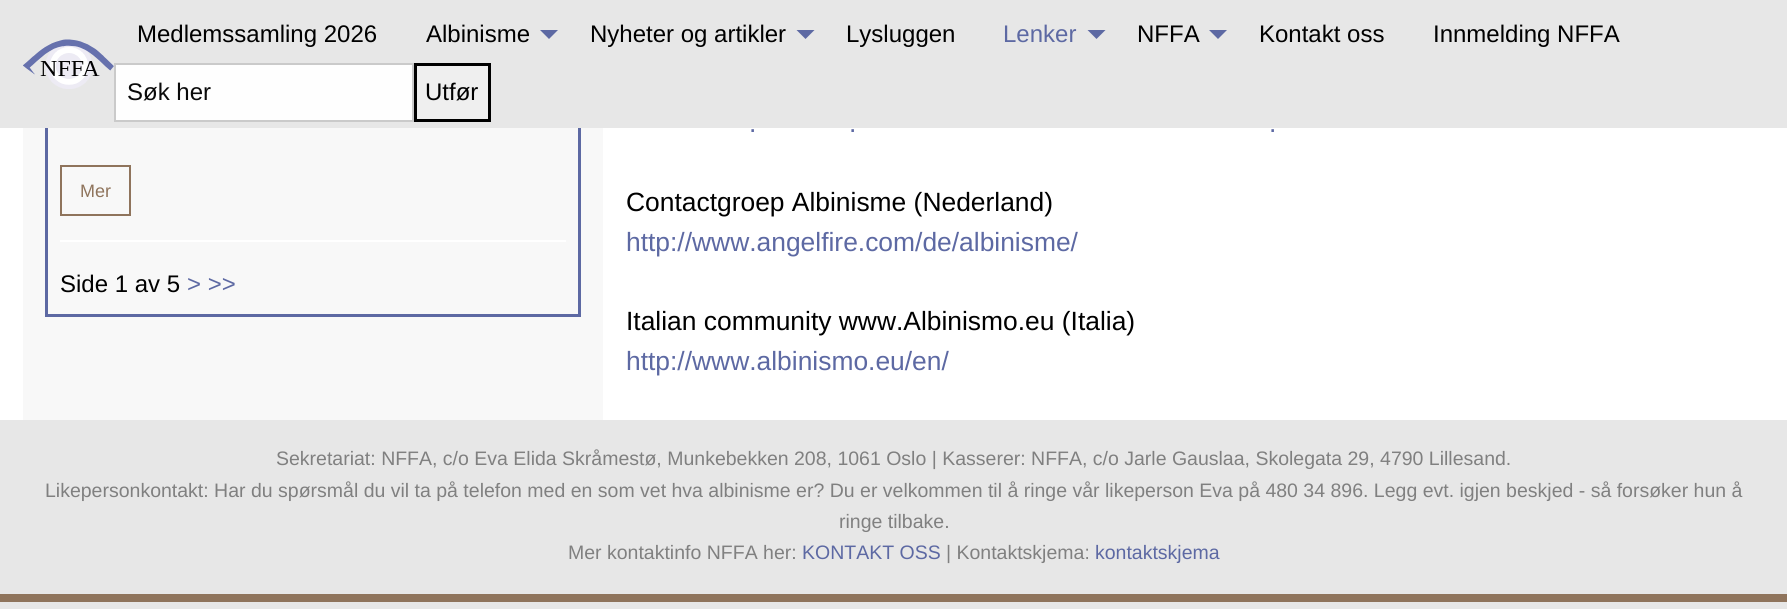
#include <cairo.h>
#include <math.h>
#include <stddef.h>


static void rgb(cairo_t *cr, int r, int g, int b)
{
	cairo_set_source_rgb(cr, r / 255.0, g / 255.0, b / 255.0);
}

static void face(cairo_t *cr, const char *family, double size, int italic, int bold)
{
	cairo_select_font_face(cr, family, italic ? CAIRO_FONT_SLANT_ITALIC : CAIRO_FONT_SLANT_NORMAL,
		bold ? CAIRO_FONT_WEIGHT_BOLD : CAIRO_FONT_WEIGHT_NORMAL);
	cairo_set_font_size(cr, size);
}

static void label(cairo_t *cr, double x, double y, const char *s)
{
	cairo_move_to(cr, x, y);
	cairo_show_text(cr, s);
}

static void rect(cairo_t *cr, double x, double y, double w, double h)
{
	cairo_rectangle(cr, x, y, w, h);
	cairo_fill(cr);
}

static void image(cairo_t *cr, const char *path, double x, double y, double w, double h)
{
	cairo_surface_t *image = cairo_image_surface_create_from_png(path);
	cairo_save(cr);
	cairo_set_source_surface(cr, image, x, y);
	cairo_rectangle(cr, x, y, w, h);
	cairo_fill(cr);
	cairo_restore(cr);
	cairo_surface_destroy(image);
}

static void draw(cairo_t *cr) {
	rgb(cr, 255, 255, 255);
	cairo_paint(cr);
	rgb(cr, 248, 248, 248);
	rect(cr, 23, 128, 580, 292);
	cairo_rectangle(cr, 46.5, -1.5, 533, 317);
	rgb(cr, 93, 105, 163);
	cairo_set_line_width(cr, 3);
	cairo_stroke(cr);
	rgb(cr, 231, 231, 231);
	rect(cr, 0, 0, 1787, 128);
	image(cr, "image0.png", 23, 39, 91, 50);
	face(cr, "Liberation Sans", 24, 0, 0);
	rgb(cr, 0, 0, 0);
	label(cr, 137, 42, "Medlemssamling 2026");
	label(cr, 426, 42, "Albinisme");
	rgb(cr, 93, 105, 163);
	cairo_new_path(cr);
	cairo_move_to(cr, 540, 30);
	cairo_line_to(cr, 558, 30);
	cairo_line_to(cr, 549, 39);
	cairo_close_path(cr);
	cairo_fill(cr);
	rgb(cr, 0, 0, 0);
	label(cr, 590, 42, "Nyheter og artikler");
	rgb(cr, 93, 105, 163);
	cairo_new_path(cr);
	cairo_move_to(cr, 796.5, 30);
	cairo_line_to(cr, 814.5, 30);
	cairo_line_to(cr, 805.5, 39);
	cairo_close_path(cr);
	cairo_fill(cr);
	rgb(cr, 0, 0, 0);
	label(cr, 846, 42, "Lysluggen");
	rgb(cr, 93, 105, 163);
	label(cr, 1003, 42, "Lenker");
	cairo_new_path(cr);
	cairo_move_to(cr, 1087.5, 30);
	cairo_line_to(cr, 1105.5, 30);
	cairo_line_to(cr, 1096.5, 39);
	cairo_close_path(cr);
	cairo_fill(cr);
	rgb(cr, 0, 0, 0);
	label(cr, 1137, 42, "NFFA");
	rgb(cr, 93, 105, 163);
	cairo_new_path(cr);
	cairo_move_to(cr, 1209, 30);
	cairo_line_to(cr, 1227, 30);
	cairo_line_to(cr, 1218, 39);
	cairo_close_path(cr);
	cairo_fill(cr);
	rgb(cr, 0, 0, 0);
	label(cr, 1259, 42, "Kontakt oss");
	label(cr, 1433, 42, "Innmelding NFFA");
	rgb(cr, 254, 254, 254);
	cairo_rectangle(cr, 115, 64, 298, 57);
	cairo_fill_preserve(cr);
	rgb(cr, 202, 202, 202);
	cairo_set_line_width(cr, 2);
	cairo_stroke(cr);
	rgb(cr, 10, 10, 10);
	label(cr, 127, 100, "Søk her");
	rgb(cr, 239, 239, 239);
	cairo_rectangle(cr, 415.5, 64.5, 74, 56);
	cairo_fill_preserve(cr);
	rgb(cr, 0, 0, 0);
	cairo_set_line_width(cr, 3);
	cairo_stroke(cr);
	label(cr, 425, 100, "Utfør");
	rgb(cr, 255, 255, 255);
	rect(cr, 60, 240, 506, 2);
	cairo_rectangle(cr, 61, 166, 69, 49);
	rgb(cr, 143, 116, 92);
	cairo_set_line_width(cr, 2);
	cairo_stroke(cr);
	face(cr, "Liberation Sans", 18, 0, 0);
	label(cr, 80, 197, "Mer");
	face(cr, "Liberation Sans", 24, 0, 0);
	rgb(cr, 0, 0, 0);
	label(cr, 60, 292, "Side 1 av 5");
	rgb(cr, 93, 105, 163);
	label(cr, 187, 292, "> >>");
	face(cr, "Liberation Sans", 26.4, 0, 0);
	label(cr, 749, 132, ".");
	label(cr, 849, 132, ".");
	label(cr, 1269, 132, ".");
	rgb(cr, 0, 0, 0);
	label(cr, 626, 211, "Contactgroep Albinisme (Nederland)");
	rgb(cr, 93, 105, 163);
	label(cr, 626, 251, "http://www.angelfire.com/de/albinisme/");
	rgb(cr, 0, 0, 0);
	label(cr, 626, 330, "Italian community www.Albinismo.eu (Italia)");
	rgb(cr, 93, 105, 163);
	label(cr, 626, 370, "http://www.albinismo.eu/en/");
	rgb(cr, 231, 231, 231);
	rect(cr, 0, 420, 1787, 189);
	face(cr, "Liberation Sans", 19.5, 0, 0);
	rgb(cr, 128, 128, 128);
	label(cr, 276, 465, "Sekretariat: NFFA, c/o Eva Elida Skråmestø, Munkebekken 208, 1061 Oslo | Kasserer: NFFA, c/o Jarle Gauslaa, Skolegata 29, 4790 Lillesand.");
	label(cr, 45, 497, "Likepersonkontakt: Har du spørsmål du vil ta på telefon med en som vet hva albinisme er? Du er velkommen til å ringe vår likeperson Eva på 480 34 896. Legg evt. igjen beskjed - så forsøker hun å");
	label(cr, 839, 528, "ringe tilbake.");
	label(cr, 568, 559, "Mer kontaktinfo NFFA her:");
	rgb(cr, 93, 105, 163);
	label(cr, 802, 559, "KONTAKT OSS");
	rgb(cr, 128, 128, 128);
	label(cr, 946, 559, "| Kontaktskjema:");
	rgb(cr, 93, 105, 163);
	label(cr, 1095, 559, "kontaktskjema");
	rgb(cr, 143, 116, 92);
	rect(cr, 0, 594, 1787, 8);
}

int main(void) {
	cairo_surface_t *surface = cairo_image_surface_create(CAIRO_FORMAT_RGB24, 1787, 609);
	cairo_t *cr = cairo_create(surface);
	cairo_font_options_t *options = cairo_font_options_create();
	cairo_font_options_set_hint_metrics(options, CAIRO_HINT_METRICS_OFF);
	cairo_font_options_set_hint_style(options, CAIRO_HINT_STYLE_NONE);
	cairo_set_font_options(cr, options);
	cairo_set_miter_limit(cr, 4);
	draw(cr);
	cairo_surface_write_to_png(surface, "render.png");
	cairo_font_options_destroy(options);
	cairo_destroy(cr);
	cairo_surface_destroy(surface);
	return 0;
}
